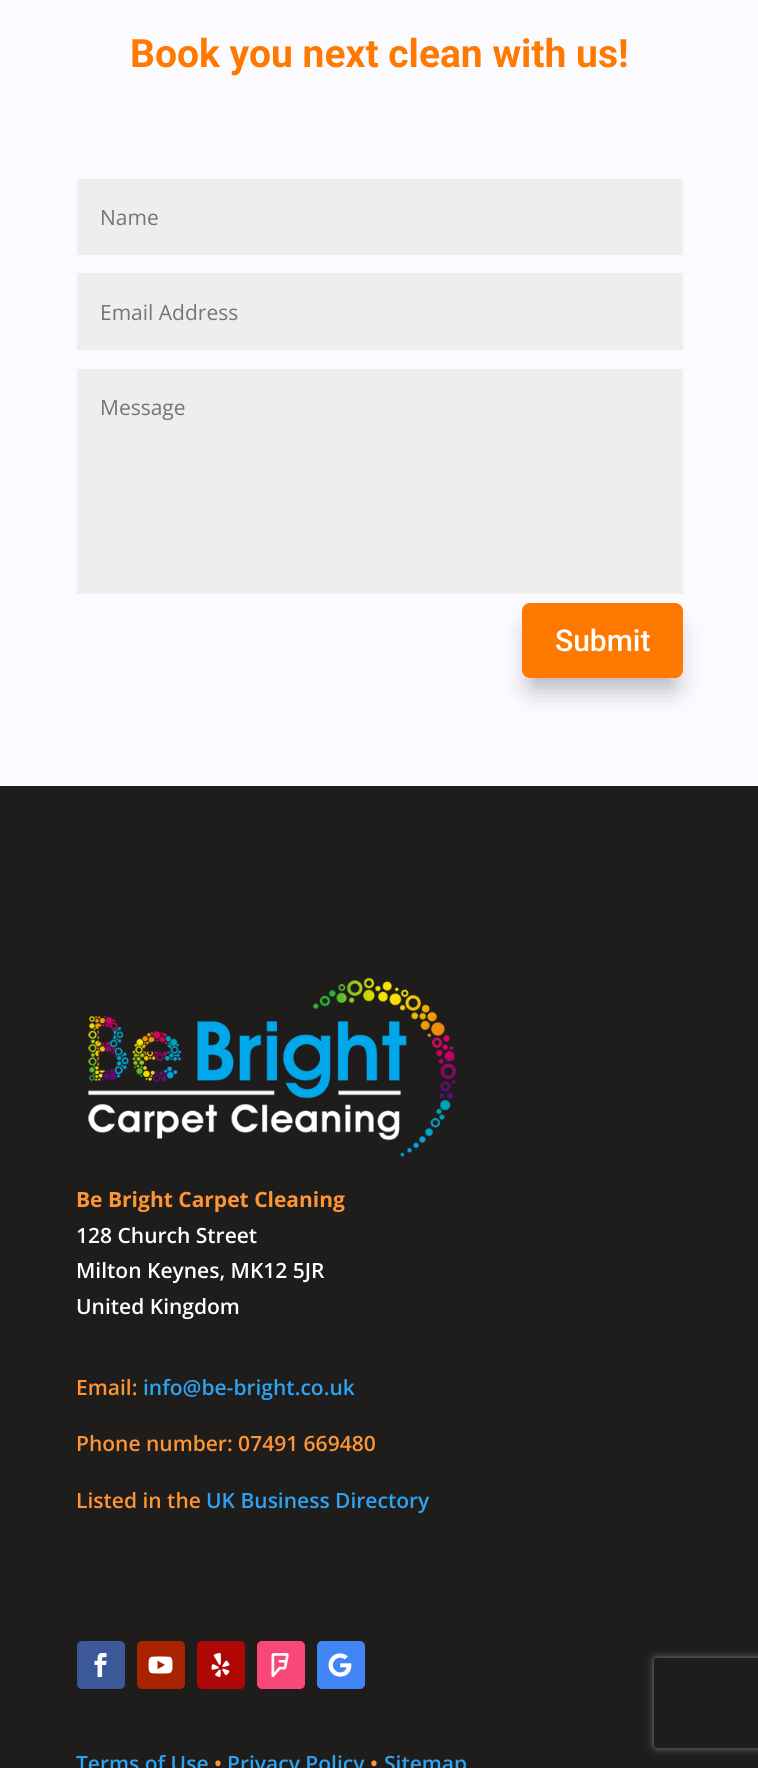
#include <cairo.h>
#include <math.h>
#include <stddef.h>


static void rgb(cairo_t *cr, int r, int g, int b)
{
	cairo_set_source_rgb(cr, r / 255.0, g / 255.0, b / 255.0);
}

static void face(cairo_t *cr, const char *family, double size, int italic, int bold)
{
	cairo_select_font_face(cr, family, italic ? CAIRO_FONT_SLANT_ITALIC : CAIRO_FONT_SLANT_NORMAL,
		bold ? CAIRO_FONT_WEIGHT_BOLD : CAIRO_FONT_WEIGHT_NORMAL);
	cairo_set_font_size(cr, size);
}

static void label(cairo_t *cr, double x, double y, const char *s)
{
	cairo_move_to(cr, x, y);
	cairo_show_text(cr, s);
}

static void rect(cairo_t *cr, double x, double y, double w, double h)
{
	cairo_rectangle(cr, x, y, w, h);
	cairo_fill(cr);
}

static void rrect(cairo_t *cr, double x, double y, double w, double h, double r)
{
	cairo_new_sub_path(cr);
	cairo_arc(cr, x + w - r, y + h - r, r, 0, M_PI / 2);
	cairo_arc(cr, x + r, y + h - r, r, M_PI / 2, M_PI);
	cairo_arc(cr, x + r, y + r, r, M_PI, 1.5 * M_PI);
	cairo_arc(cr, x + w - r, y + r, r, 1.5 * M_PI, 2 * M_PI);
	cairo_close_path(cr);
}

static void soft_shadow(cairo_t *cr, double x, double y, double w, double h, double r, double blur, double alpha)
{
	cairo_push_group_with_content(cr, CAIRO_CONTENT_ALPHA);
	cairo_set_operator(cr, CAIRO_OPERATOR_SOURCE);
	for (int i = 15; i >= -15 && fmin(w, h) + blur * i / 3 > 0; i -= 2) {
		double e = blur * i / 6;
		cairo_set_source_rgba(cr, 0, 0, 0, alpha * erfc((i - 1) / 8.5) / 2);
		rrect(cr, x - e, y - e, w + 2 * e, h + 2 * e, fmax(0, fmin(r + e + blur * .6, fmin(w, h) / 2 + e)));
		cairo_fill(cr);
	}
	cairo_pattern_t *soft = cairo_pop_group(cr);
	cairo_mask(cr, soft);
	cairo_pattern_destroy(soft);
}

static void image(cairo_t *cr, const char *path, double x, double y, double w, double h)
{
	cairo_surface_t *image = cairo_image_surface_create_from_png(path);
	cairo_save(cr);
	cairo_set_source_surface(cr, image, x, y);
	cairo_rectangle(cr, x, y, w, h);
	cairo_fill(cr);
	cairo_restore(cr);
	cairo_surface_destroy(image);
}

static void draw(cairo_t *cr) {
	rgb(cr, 250, 250, 255);
	cairo_paint(cr);
	face(cr, "Roboto", 39, 0, 1);
	rgb(cr, 255, 121, 0);
	label(cr, 130, 67, "Book you next clean with us!");
	rgb(cr, 238, 238, 238);
	rect(cr, 77, 179, 606, 76);
	face(cr, "Open Sans", 21, 0, 0);
	rgb(cr, 117, 117, 117);
	label(cr, 100, 225, "Name");
	rgb(cr, 238, 238, 238);
	rect(cr, 77, 273, 606, 77);
	rgb(cr, 117, 117, 117);
	label(cr, 100, 320, "Email Address");
	rgb(cr, 238, 238, 238);
	rect(cr, 77, 369, 606, 225);
	rgb(cr, 117, 117, 117);
	label(cr, 100, 415, "Message");
	rgb(cr, 0, 0, 0);
	soft_shadow(cr, 531, 630, 143, 57, 0, 13.5, 0.3);
	rgb(cr, 255, 121, 0);
	rrect(cr, 523.5, 604.5, 158, 72, 6.5);
	cairo_fill_preserve(cr);
	cairo_set_line_width(cr, 3);
	cairo_stroke(cr);
	face(cr, "Roboto Medium", 30, 0, 0);
	rgb(cr, 255, 255, 255);
	label(cr, 555, 651, "Submit");
	rgb(cr, 30, 29, 28);
	rect(cr, 0, 786, 758, 982);
	image(cr, "image0.png", 88, 977, 369, 180);
	face(cr, "Open Sans", 21, 0, 1);
	rgb(cr, 255, 148, 52);
	label(cr, 76, 1207, "Be Bright Carpet Cleaning");
	face(cr, "Open Sans SemiBold", 21, 0, 0);
	rgb(cr, 255, 255, 255);
	label(cr, 76, 1243, "128 Church Street");
	label(cr, 76, 1278, "Milton Keynes, MK12 5JR");
	label(cr, 76, 1314, "United Kingdom");
	rgb(cr, 255, 148, 52);
	label(cr, 76, 1395, "Email:");
	rgb(cr, 46, 163, 242);
	label(cr, 143, 1395, "info@be-bright.co.uk");
	rgb(cr, 255, 148, 52);
	label(cr, 76, 1451, "Phone number: 07491 669480");
	label(cr, 76, 1508, "Listed in the");
	rgb(cr, 46, 163, 242);
	label(cr, 206, 1508, "UK Business Directory");
	rgb(cr, 59, 89, 152);
	rrect(cr, 77, 1641, 48, 48, 5);
	cairo_fill(cr);
	image(cr, "image1.png", 94, 1653, 13, 24);
	rgb(cr, 168, 36, 0);
	rrect(cr, 137, 1641, 48, 48, 5);
	cairo_fill(cr);
	image(cr, "image2.png", 148, 1656, 25, 18);
	rgb(cr, 175, 6, 6);
	rrect(cr, 197, 1641, 48, 48, 5);
	cairo_fill(cr);
	image(cr, "image3.png", 211, 1653, 19, 24);
	rgb(cr, 249, 72, 119);
	rrect(cr, 257, 1641, 48, 48, 5);
	cairo_fill(cr);
	image(cr, "image4.png", 271, 1653, 18, 25);
	rgb(cr, 66, 133, 244);
	rrect(cr, 317, 1641, 48, 48, 5);
	cairo_fill(cr);
	image(cr, "image5.png", 328, 1653, 24, 24);
	rgb(cr, 46, 163, 242);
	label(cr, 76, 1771, "Terms of Use");
	rgb(cr, 255, 148, 52);
	label(cr, 214, 1771, "•");
	rgb(cr, 46, 163, 242);
	label(cr, 227, 1771, "Privacy Policy");
	rgb(cr, 255, 148, 52);
	label(cr, 370, 1771, "•");
	rgb(cr, 46, 163, 242);
	label(cr, 384, 1771, "Sitemap");
	cairo_save(cr);
	cairo_set_fill_rule(cr, CAIRO_FILL_RULE_EVEN_ODD);
	cairo_new_path(cr);
	cairo_move_to(cr, 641, 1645);
	cairo_line_to(cr, 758, 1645);
	cairo_line_to(cr, 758, 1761);
	cairo_line_to(cr, 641, 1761);
	cairo_close_path(cr);
	cairo_move_to(cr, 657, 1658);
	cairo_line_to(cr, 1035, 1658);
	cairo_curve_to(cr, 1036.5, 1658, 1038, 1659.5, 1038, 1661);
	cairo_line_to(cr, 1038, 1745);
	cairo_curve_to(cr, 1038, 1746.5, 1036.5, 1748, 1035, 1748);
	cairo_line_to(cr, 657, 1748);
	cairo_curve_to(cr, 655.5, 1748, 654, 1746.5, 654, 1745);
	cairo_line_to(cr, 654, 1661);
	cairo_curve_to(cr, 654, 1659.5, 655.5, 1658, 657, 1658);
	cairo_close_path(cr);
	cairo_clip(cr);
	rgb(cr, 128, 128, 128);
	soft_shadow(cr, 654, 1658, 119, 90, 3, 4, 1);
	cairo_restore(cr);
}

int main(void) {
	cairo_surface_t *surface = cairo_image_surface_create(CAIRO_FORMAT_RGB24, 758, 1768);
	cairo_t *cr = cairo_create(surface);
	cairo_font_options_t *options = cairo_font_options_create();
	cairo_font_options_set_hint_metrics(options, CAIRO_HINT_METRICS_OFF);
	cairo_font_options_set_hint_style(options, CAIRO_HINT_STYLE_NONE);
	cairo_set_font_options(cr, options);
	cairo_set_miter_limit(cr, 4);
	draw(cr);
	cairo_surface_write_to_png(surface, "render.png");
	cairo_font_options_destroy(options);
	cairo_destroy(cr);
	cairo_surface_destroy(surface);
	return 0;
}
